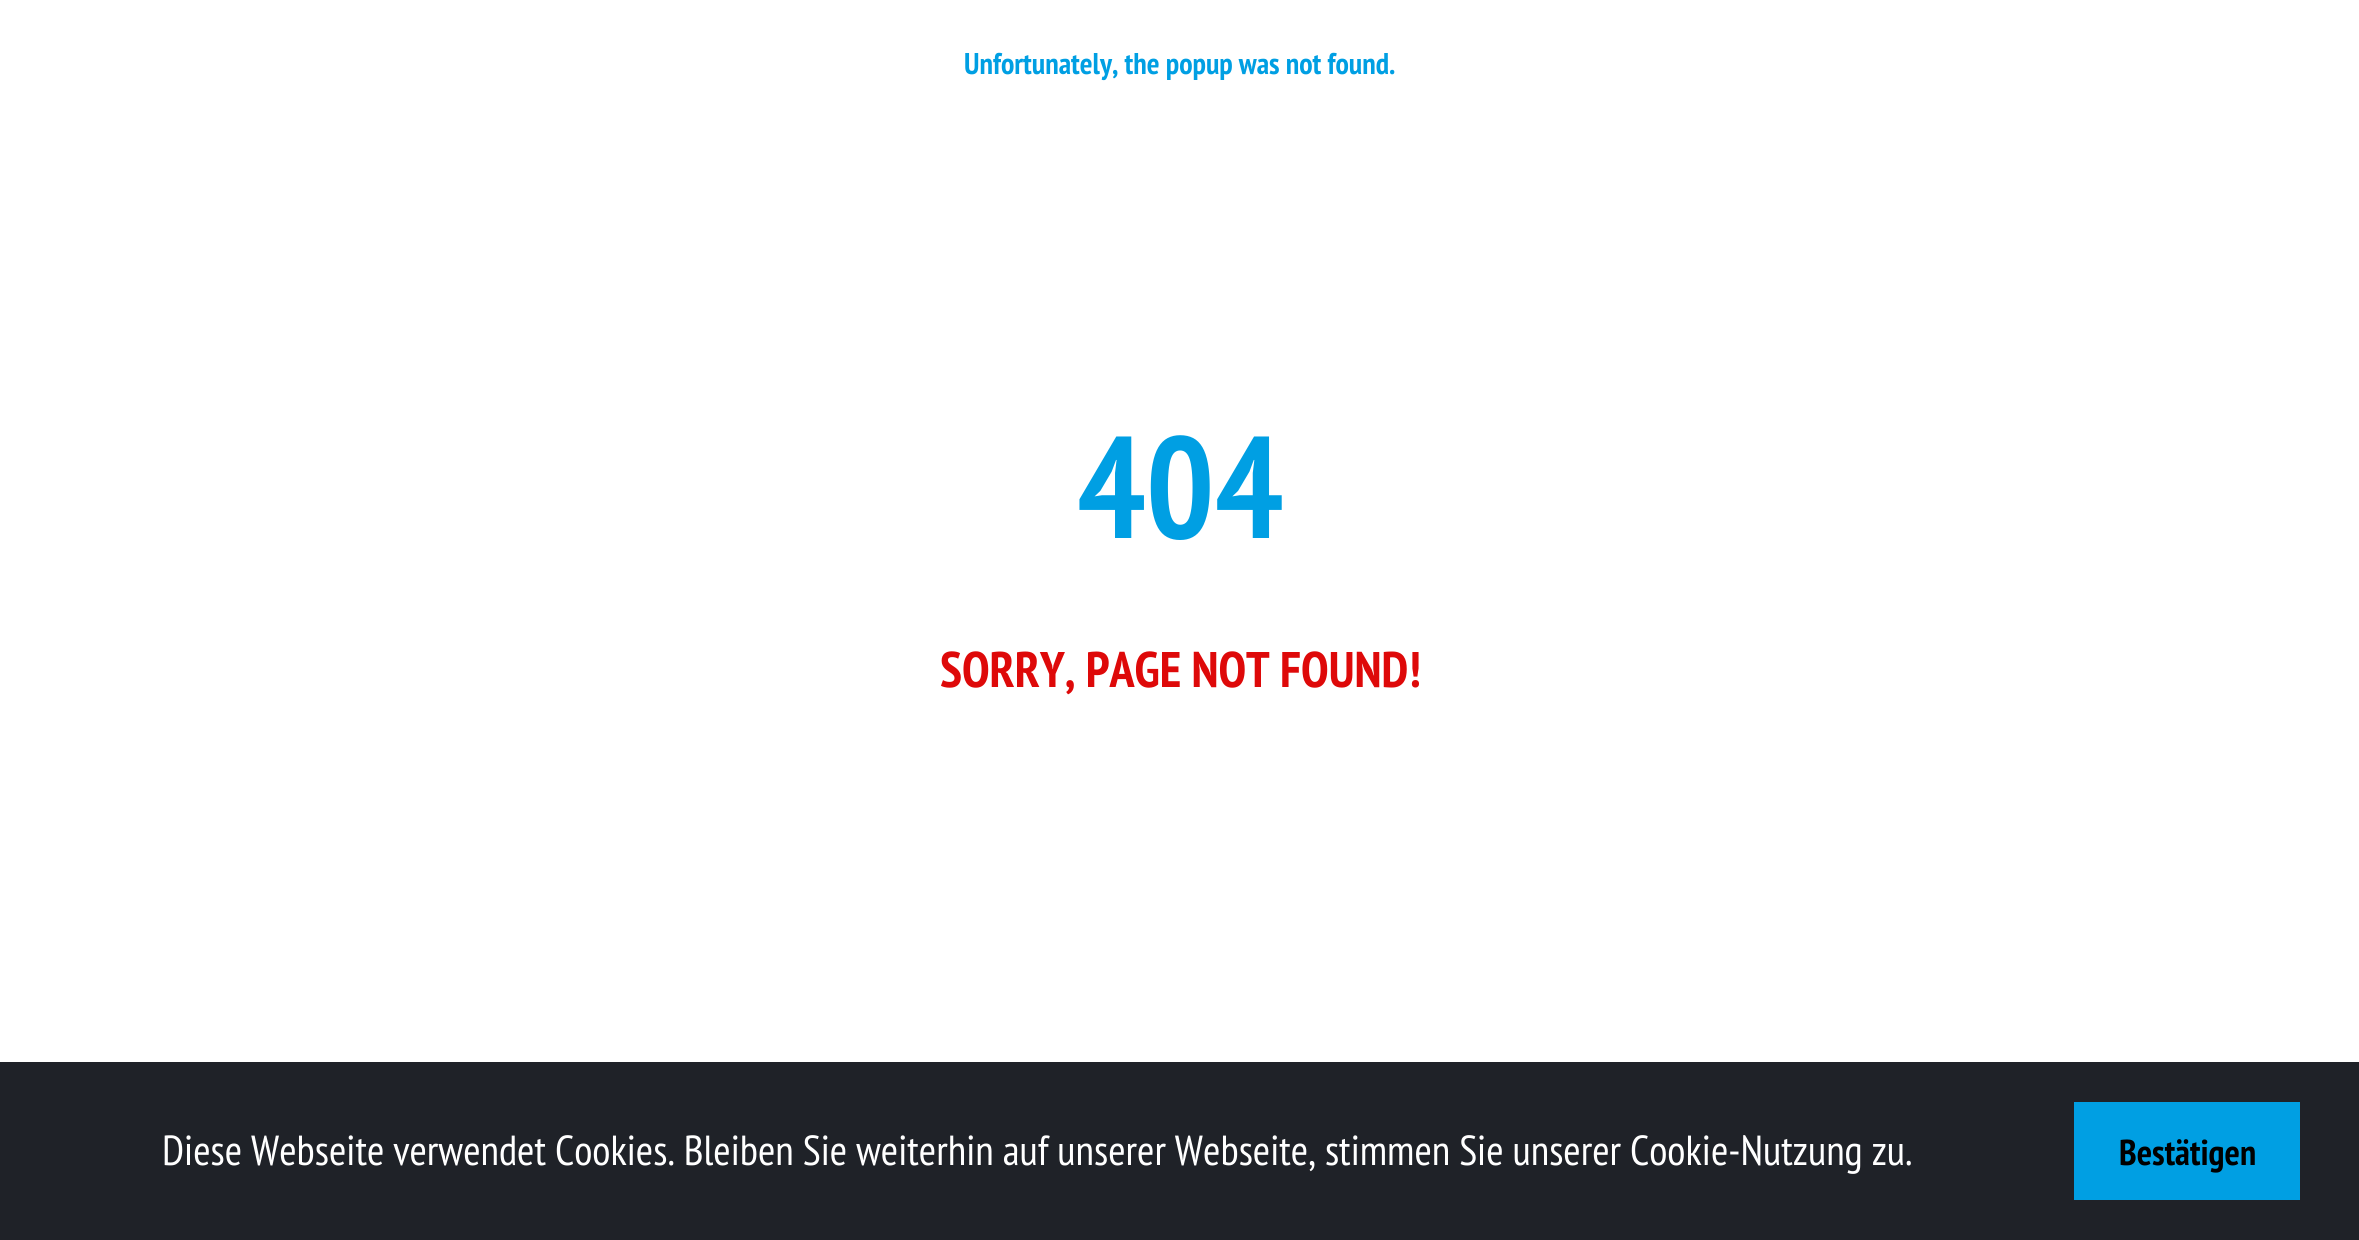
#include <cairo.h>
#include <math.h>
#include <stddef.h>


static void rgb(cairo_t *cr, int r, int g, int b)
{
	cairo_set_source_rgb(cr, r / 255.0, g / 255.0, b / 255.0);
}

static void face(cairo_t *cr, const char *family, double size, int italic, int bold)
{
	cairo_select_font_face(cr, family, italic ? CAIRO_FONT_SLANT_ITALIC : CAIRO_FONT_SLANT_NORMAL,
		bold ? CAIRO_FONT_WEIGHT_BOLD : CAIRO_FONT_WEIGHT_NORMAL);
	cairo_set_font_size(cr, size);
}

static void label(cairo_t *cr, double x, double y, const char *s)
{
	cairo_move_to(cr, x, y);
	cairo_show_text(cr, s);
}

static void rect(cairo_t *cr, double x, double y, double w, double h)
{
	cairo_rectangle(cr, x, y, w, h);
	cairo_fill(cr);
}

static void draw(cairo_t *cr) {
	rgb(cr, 255, 255, 255);
	cairo_paint(cr);
	face(cr, "PT Sans Narrow", 30, 0, 1);
	rgb(cr, 0, 159, 227);
	label(cr, 964, 74, "Unfortunately, the popup was not found.");
	face(cr, "PT Sans Narrow", 144, 0, 1);
	label(cr, 1077, 538, "404");
	face(cr, "PT Sans Narrow", 50, 0, 1);
	rgb(cr, 222, 9, 9);
	label(cr, 940, 687, "SORRY, PAGE NOT FOUND!");
	rgb(cr, 31, 34, 40);
	rect(cr, 0, 1062, 2359, 178);
	face(cr, "PT Sans Narrow", 42, 0, 0);
	rgb(cr, 255, 255, 255);
	label(cr, 162, 1165, "Diese Webseite verwendet Cookies. Bleiben Sie weiterhin auf unserer Webseite, stimmen Sie unserer Cookie-Nutzung zu.");
	rgb(cr, 0, 159, 227);
	rect(cr, 2074, 1102, 226, 98);
	face(cr, "PT Sans Narrow", 36, 0, 1);
	rgb(cr, 0, 0, 0);
	label(cr, 2119, 1165, "Bestätigen");
}

int main(void) {
	cairo_surface_t *surface = cairo_image_surface_create(CAIRO_FORMAT_RGB24, 2359, 1240);
	cairo_t *cr = cairo_create(surface);
	cairo_font_options_t *options = cairo_font_options_create();
	cairo_font_options_set_hint_metrics(options, CAIRO_HINT_METRICS_OFF);
	cairo_font_options_set_hint_style(options, CAIRO_HINT_STYLE_NONE);
	cairo_set_font_options(cr, options);
	cairo_set_miter_limit(cr, 4);
	draw(cr);
	cairo_surface_write_to_png(surface, "render.png");
	cairo_font_options_destroy(options);
	cairo_destroy(cr);
	cairo_surface_destroy(surface);
	return 0;
}
